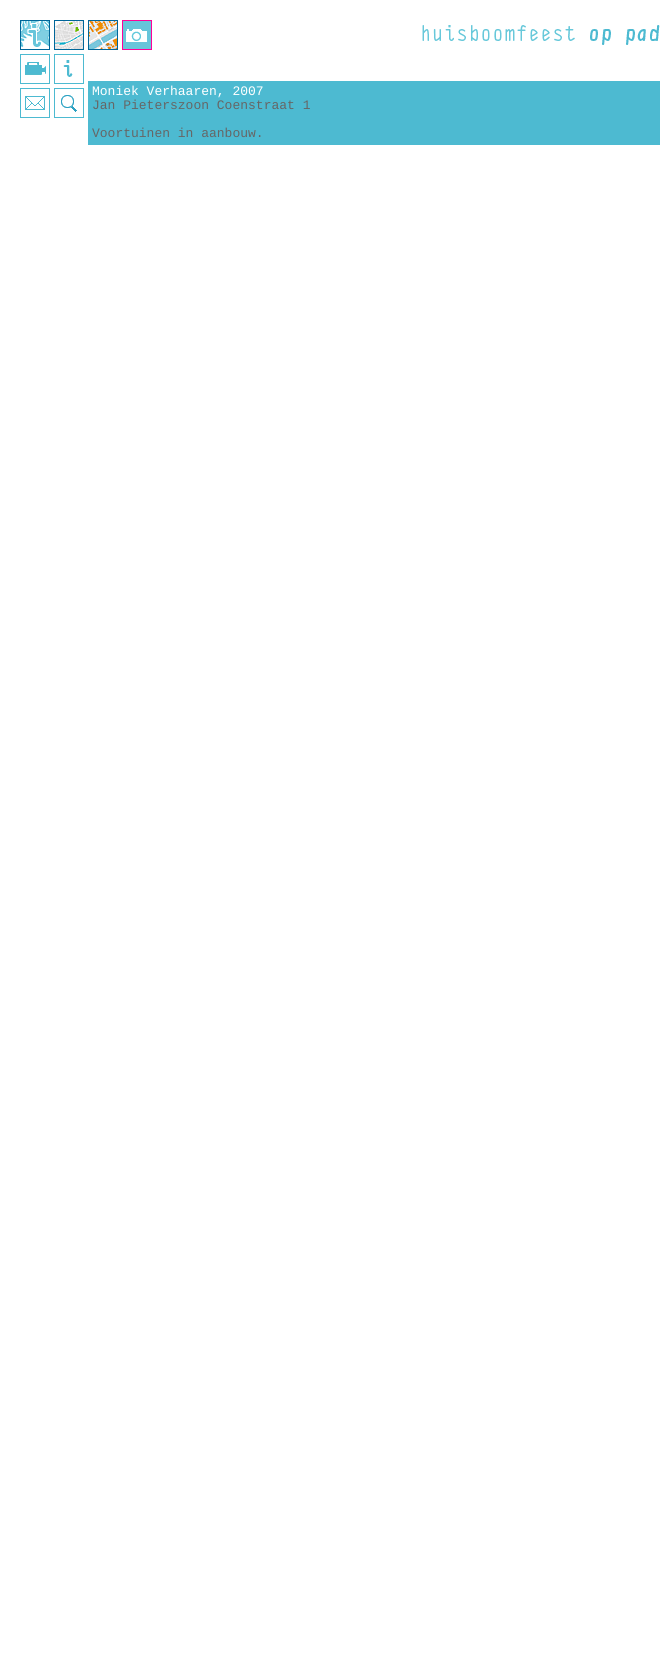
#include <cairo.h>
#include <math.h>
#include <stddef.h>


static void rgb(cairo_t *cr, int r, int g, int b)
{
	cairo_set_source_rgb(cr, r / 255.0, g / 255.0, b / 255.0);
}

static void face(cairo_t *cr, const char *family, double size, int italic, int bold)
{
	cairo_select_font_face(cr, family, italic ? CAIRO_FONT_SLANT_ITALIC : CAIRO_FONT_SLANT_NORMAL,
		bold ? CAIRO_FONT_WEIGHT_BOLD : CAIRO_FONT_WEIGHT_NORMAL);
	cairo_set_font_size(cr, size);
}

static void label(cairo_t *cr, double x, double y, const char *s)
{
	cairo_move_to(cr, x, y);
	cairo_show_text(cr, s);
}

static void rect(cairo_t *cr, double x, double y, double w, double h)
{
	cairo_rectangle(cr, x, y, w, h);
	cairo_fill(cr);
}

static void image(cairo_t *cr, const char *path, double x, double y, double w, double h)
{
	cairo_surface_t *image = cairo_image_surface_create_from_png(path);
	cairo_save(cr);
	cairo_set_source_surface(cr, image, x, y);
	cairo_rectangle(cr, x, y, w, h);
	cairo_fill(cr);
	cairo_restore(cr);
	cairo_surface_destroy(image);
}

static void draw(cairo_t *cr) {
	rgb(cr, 255, 255, 255);
	cairo_paint(cr);
	image(cr, "image0.png", 122, 20, 30, 30);
	image(cr, "image1.png", 20, 20, 30, 30);
	image(cr, "image2.png", 54, 20, 30, 30);
	image(cr, "image3.png", 88, 20, 30, 30);
	image(cr, "image4.png", 422, 25, 238, 20);
	image(cr, "image5.png", 20, 88, 30, 30);
	image(cr, "image6.png", 54, 88, 30, 30);
	image(cr, "image7.png", 20, 54, 30, 30);
	image(cr, "image8.png", 54, 54, 30, 30);
	rgb(cr, 77, 186, 209);
	rect(cr, 88, 81, 572, 64);
	face(cr, "Liberation Mono", 13, 0, 0);
	rgb(cr, 255, 255, 255);
	label(cr, 92, 95, "Moniek Verhaaren, 2007");
	rgb(cr, 102, 102, 102);
	label(cr, 92, 109, "Jan Pieterszoon Coenstraat 1");
	label(cr, 92, 137, "Voortuinen in aanbouw.");
}

int main(void) {
	cairo_surface_t *surface = cairo_image_surface_create(CAIRO_FORMAT_RGB24, 661, 1661);
	cairo_t *cr = cairo_create(surface);
	cairo_font_options_t *options = cairo_font_options_create();
	cairo_font_options_set_hint_metrics(options, CAIRO_HINT_METRICS_OFF);
	cairo_font_options_set_hint_style(options, CAIRO_HINT_STYLE_NONE);
	cairo_set_font_options(cr, options);
	cairo_set_miter_limit(cr, 4);
	draw(cr);
	cairo_surface_write_to_png(surface, "render.png");
	cairo_font_options_destroy(options);
	cairo_destroy(cr);
	cairo_surface_destroy(surface);
	return 0;
}
